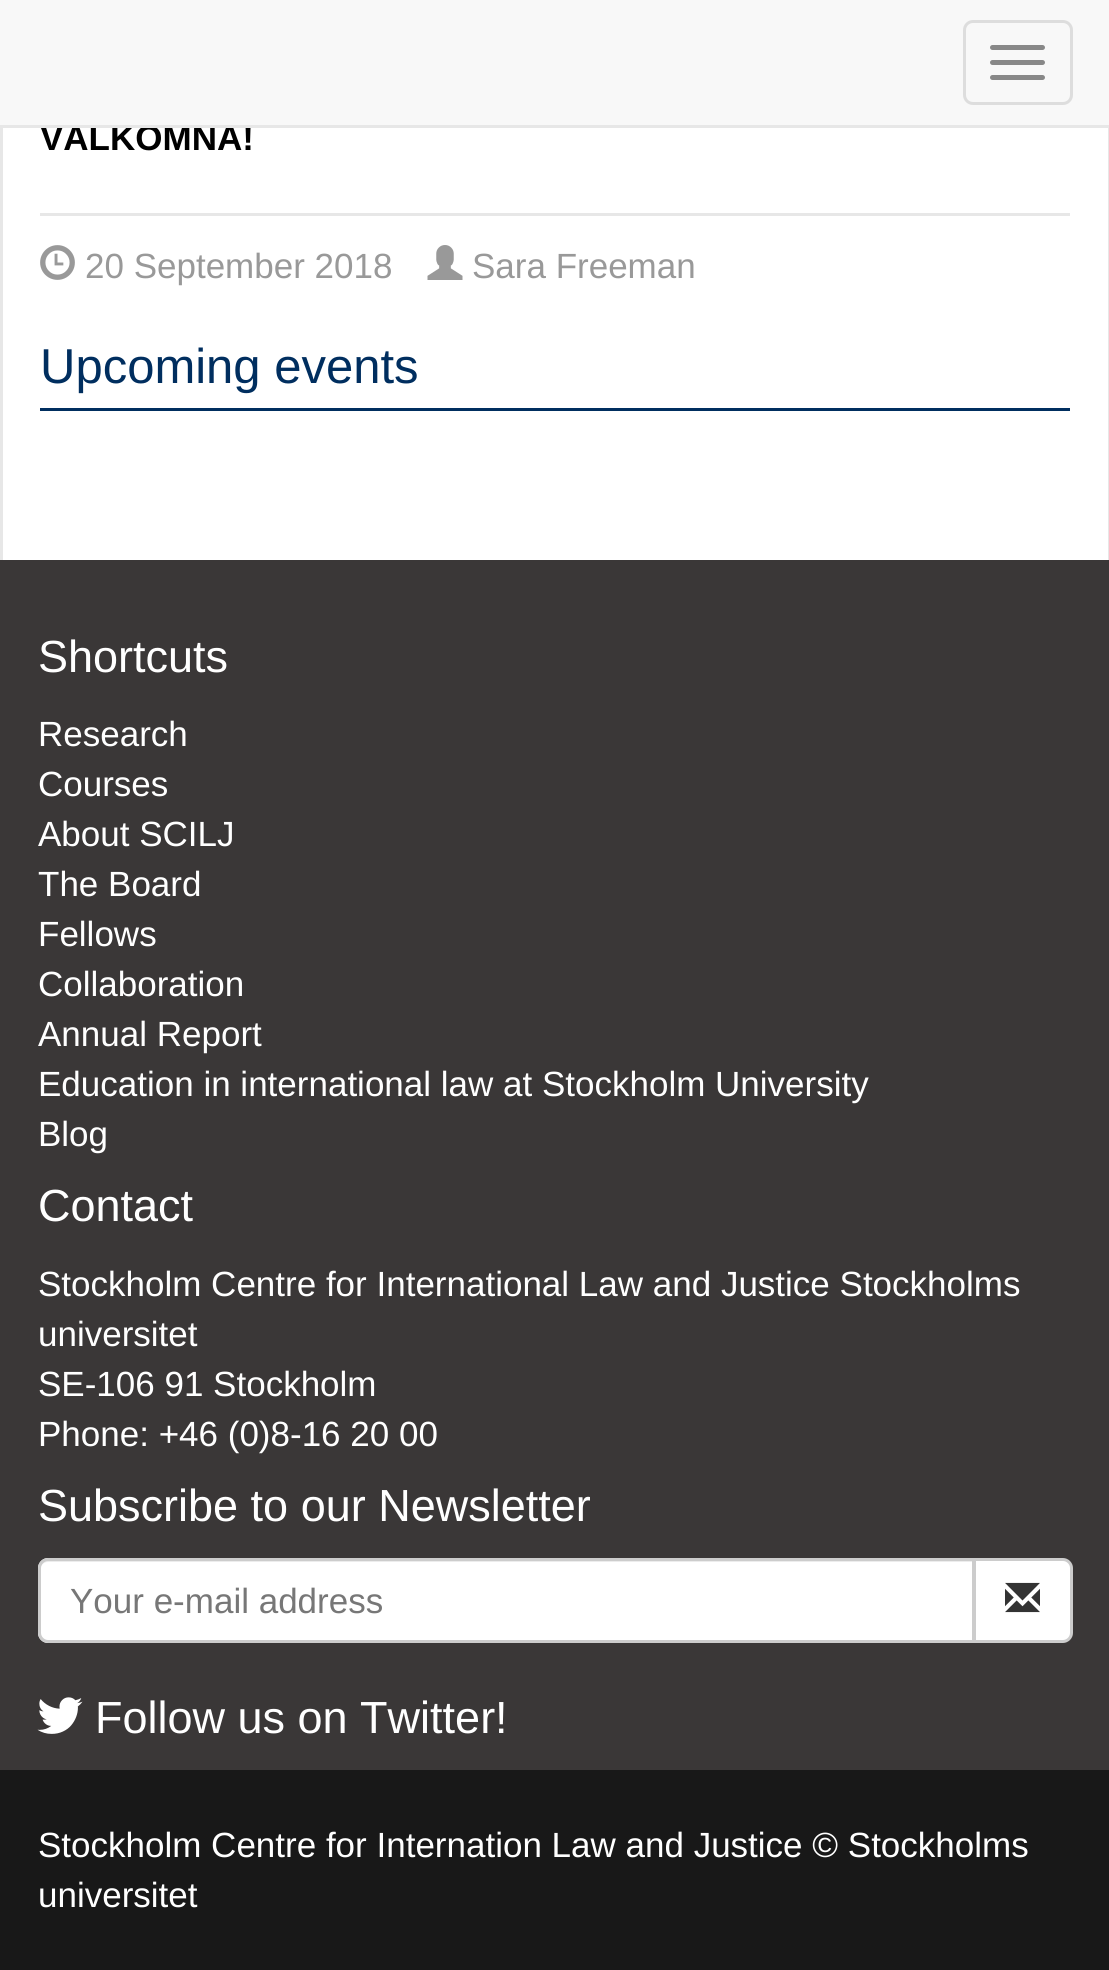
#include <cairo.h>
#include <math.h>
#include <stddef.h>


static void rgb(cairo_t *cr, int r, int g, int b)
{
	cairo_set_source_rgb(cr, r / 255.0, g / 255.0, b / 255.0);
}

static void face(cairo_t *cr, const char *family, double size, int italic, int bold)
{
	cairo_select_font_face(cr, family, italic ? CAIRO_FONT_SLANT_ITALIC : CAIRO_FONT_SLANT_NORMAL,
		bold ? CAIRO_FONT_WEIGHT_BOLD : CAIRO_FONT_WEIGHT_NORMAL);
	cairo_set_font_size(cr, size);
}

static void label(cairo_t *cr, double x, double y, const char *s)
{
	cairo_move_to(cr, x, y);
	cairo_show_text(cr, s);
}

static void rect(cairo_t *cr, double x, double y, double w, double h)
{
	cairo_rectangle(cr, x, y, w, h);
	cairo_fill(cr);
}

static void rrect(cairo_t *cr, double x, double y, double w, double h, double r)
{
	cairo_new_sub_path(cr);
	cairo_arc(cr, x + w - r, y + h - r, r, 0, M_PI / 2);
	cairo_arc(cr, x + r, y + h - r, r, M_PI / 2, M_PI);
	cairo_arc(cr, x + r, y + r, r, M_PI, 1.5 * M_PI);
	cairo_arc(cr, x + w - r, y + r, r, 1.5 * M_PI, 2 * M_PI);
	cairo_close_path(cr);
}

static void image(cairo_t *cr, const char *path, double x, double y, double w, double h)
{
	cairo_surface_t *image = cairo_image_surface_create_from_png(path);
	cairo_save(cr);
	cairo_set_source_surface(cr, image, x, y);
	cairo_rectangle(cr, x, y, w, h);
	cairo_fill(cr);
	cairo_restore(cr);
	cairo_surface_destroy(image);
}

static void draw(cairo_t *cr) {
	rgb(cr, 255, 255, 255);
	cairo_paint(cr);
	face(cr, "Liberation Sans", 35, 0, 1);
	rgb(cr, 0, 0, 0);
	label(cr, 40, 150, "VÄLKOMNA!");
	rgb(cr, 248, 248, 248);
	rect(cr, 0, 0, 1109, 125);
	rgb(cr, 231, 231, 231);
	rect(cr, 0, 125, 1109, 3);
	rrect(cr, 964.5, 21.5, 107, 82, 8.5);
	rgb(cr, 221, 221, 221);
	cairo_set_line_width(cr, 3);
	cairo_stroke(cr);
	rgb(cr, 136, 136, 136);
	rrect(cr, 990, 45, 55, 5, 2.5);
	cairo_fill(cr);
	rrect(cr, 990, 60, 55, 5, 2.5);
	cairo_fill(cr);
	rrect(cr, 990, 75, 55, 5, 2.5);
	cairo_fill(cr);
	rgb(cr, 231, 231, 231);
	rect(cr, 1108, 128, 1, 432);
	rect(cr, 0, 128, 3, 432);
	rect(cr, 40, 213, 1030, 3);
	image(cr, "image0.png", 40, 245, 35, 35);
	face(cr, "Liberation Sans", 35, 0, 0);
	rgb(cr, 153, 153, 153);
	label(cr, 85, 278, "20 September 2018");
	image(cr, "image1.png", 427, 245, 36, 35);
	label(cr, 472, 278, "Sara Freeman");
	rgb(cr, 0, 46, 95);
	rect(cr, 40, 408, 1030, 3);
	face(cr, "Liberation Sans", 49, 0, 0);
	label(cr, 40, 383, "Upcoming events");
	rgb(cr, 58, 55, 55);
	rect(cr, 0, 560, 1109, 1210);
	face(cr, "Liberation Sans", 45, 0, 0);
	rgb(cr, 255, 255, 255);
	label(cr, 38, 672, "Shortcuts");
	face(cr, "Liberation Sans", 35, 0, 0);
	label(cr, 38, 746, "Research");
	label(cr, 38, 796, "Courses");
	label(cr, 38, 846, "About SCILJ");
	label(cr, 38, 896, "The Board");
	label(cr, 38, 946, "Fellows");
	label(cr, 38, 996, "Collaboration");
	label(cr, 38, 1046, "Annual Report");
	label(cr, 38, 1096, "Education in international law at Stockholm University");
	label(cr, 38, 1146, "Blog");
	face(cr, "Liberation Sans", 45, 0, 0);
	label(cr, 38, 1221, "Contact");
	face(cr, "Liberation Sans", 35, 0, 0);
	label(cr, 38, 1296, "Stockholm Centre for International Law and Justice Stockholms");
	label(cr, 38, 1346, "universitet");
	label(cr, 38, 1396, "SE-106 91 Stockholm");
	label(cr, 38, 1446, "Phone: +46 (0)8-16 20 00");
	face(cr, "Liberation Sans", 45, 0, 0);
	label(cr, 38, 1521, "Subscribe to our Newsletter");
	cairo_new_path(cr);
	cairo_move_to(cr, 974.5, 1559.5);
	cairo_line_to(cr, 1063, 1559.5);
	cairo_curve_to(cr, 1067.5, 1559.5, 1071.5, 1563.5, 1071.5, 1568);
	cairo_line_to(cr, 1071.5, 1633);
	cairo_curve_to(cr, 1071.5, 1637.5, 1067.5, 1641.5, 1063, 1641.5);
	cairo_line_to(cr, 974.5, 1641.5);
	cairo_close_path(cr);
	cairo_fill_preserve(cr);
	rgb(cr, 204, 204, 204);
	cairo_stroke(cr);
	rgb(cr, 255, 255, 255);
	cairo_new_path(cr);
	cairo_move_to(cr, 48, 1558);
	cairo_line_to(cr, 975, 1558);
	cairo_line_to(cr, 975, 1643);
	cairo_line_to(cr, 48, 1643);
	cairo_curve_to(cr, 42.5, 1643, 38, 1638.5, 38, 1633);
	cairo_line_to(cr, 38, 1568);
	cairo_curve_to(cr, 38, 1562.5, 42.5, 1558, 48, 1558);
	cairo_close_path(cr);
	cairo_fill(cr);
	rgb(cr, 236, 236, 236);
	cairo_new_path(cr);
	cairo_move_to(cr, 48, 1562);
	cairo_line_to(cr, 972, 1562);
	cairo_line_to(cr, 972, 1640);
	cairo_line_to(cr, 973, 1640);
	cairo_line_to(cr, 973, 1560);
	cairo_line_to(cr, 48, 1560);
	cairo_curve_to(cr, 42, 1560, 40, 1565, 40, 1570);
	cairo_curve_to(cr, 40, 1566, 43, 1562, 48, 1562);
	cairo_close_path(cr);
	cairo_fill(cr);
	cairo_new_path(cr);
	cairo_move_to(cr, 48, 1559.5);
	cairo_line_to(cr, 973.5, 1559.5);
	cairo_line_to(cr, 973.5, 1641.5);
	cairo_line_to(cr, 48, 1641.5);
	cairo_curve_to(cr, 43.5, 1641.5, 39.5, 1637.5, 39.5, 1633);
	cairo_line_to(cr, 39.5, 1568);
	cairo_curve_to(cr, 39.5, 1563.5, 43.5, 1559.5, 48, 1559.5);
	cairo_close_path(cr);
	rgb(cr, 204, 204, 204);
	cairo_stroke(cr);
	face(cr, "Liberation Sans", 35, 0, 0);
	rgb(cr, 119, 119, 119);
	label(cr, 70, 1613, "Your e-mail address");
	image(cr, "image2.png", 1005, 1582, 35, 31);
	image(cr, "image3.png", 37, 1697, 46, 37);
	face(cr, "Liberation Sans", 45, 0, 0);
	rgb(cr, 255, 255, 255);
	label(cr, 95, 1733, "Follow us on Twitter!");
	rgb(cr, 24, 24, 24);
	rect(cr, 0, 1770, 1109, 200);
	face(cr, "Liberation Sans", 35, 0, 0);
	rgb(cr, 255, 255, 255);
	label(cr, 38, 1857, "Stockholm Centre for Internation Law and Justice © Stockholms");
	label(cr, 38, 1907, "universitet");
}

int main(void) {
	cairo_surface_t *surface = cairo_image_surface_create(CAIRO_FORMAT_RGB24, 1109, 1970);
	cairo_t *cr = cairo_create(surface);
	cairo_font_options_t *options = cairo_font_options_create();
	cairo_font_options_set_hint_metrics(options, CAIRO_HINT_METRICS_OFF);
	cairo_font_options_set_hint_style(options, CAIRO_HINT_STYLE_NONE);
	cairo_set_font_options(cr, options);
	cairo_set_miter_limit(cr, 4);
	draw(cr);
	cairo_surface_write_to_png(surface, "render.png");
	cairo_font_options_destroy(options);
	cairo_destroy(cr);
	cairo_surface_destroy(surface);
	return 0;
}
